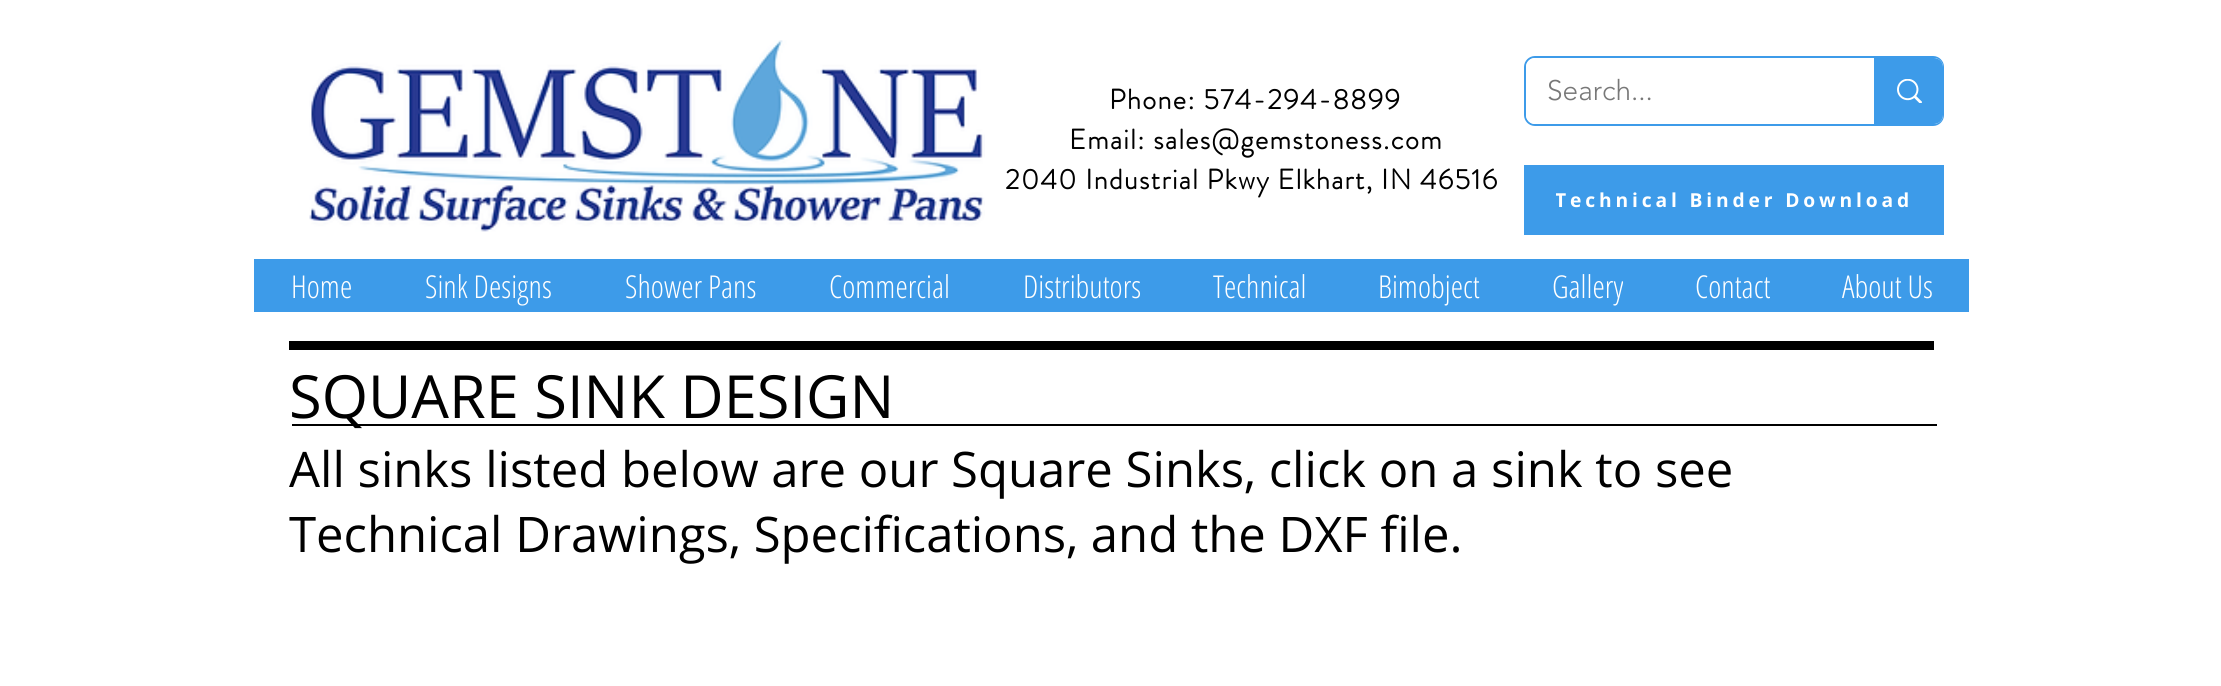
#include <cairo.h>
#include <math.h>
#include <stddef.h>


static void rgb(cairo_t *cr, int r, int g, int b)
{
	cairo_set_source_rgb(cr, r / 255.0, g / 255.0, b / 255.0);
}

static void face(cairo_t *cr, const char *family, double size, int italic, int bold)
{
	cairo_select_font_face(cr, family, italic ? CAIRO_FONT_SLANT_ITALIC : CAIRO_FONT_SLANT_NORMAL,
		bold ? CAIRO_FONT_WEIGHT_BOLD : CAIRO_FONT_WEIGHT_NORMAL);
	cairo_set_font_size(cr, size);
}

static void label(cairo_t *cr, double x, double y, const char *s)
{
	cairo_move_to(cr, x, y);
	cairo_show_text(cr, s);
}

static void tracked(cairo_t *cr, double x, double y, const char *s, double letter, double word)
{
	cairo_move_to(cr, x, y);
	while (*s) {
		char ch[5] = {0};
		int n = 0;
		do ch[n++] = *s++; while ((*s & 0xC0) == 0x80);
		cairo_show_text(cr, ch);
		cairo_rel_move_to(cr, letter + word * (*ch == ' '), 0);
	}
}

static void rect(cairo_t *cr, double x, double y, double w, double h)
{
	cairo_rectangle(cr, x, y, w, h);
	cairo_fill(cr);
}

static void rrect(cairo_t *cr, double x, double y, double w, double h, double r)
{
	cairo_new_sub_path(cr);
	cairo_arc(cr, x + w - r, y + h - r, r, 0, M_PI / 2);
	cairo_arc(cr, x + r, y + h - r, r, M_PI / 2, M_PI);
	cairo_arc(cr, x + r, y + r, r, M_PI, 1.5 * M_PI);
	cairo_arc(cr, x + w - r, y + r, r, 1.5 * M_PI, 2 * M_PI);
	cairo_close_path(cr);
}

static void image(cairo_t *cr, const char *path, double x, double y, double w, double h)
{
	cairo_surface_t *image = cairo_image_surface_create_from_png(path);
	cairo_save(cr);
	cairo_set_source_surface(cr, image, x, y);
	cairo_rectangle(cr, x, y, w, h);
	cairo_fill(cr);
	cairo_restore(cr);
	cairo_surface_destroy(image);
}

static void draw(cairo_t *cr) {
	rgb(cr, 255, 255, 255);
	cairo_paint(cr);
	image(cr, "image0.png", 309, 40, 676, 192);
	face(cr, "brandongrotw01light", 28, 0, 1);
	rgb(cr, 0, 0, 0);
	tracked(cr, 1109, 109, "Phone: 574-294-8899", 1.4, 0);
	tracked(cr, 1069, 149, "Email: sales@gemstoness.com", 1.4, 0);
	tracked(cr, 1005, 189, "2040 Industrial Pkwy Elkhart, IN 46516", 1.4, 0);
	rrect(cr, 1525, 57, 418, 68, 10);
	rgb(cr, 61, 155, 233);
	cairo_stroke(cr);
	rgb(cr, 255, 255, 255);
	rrect(cr, 1526, 58, 417, 66, 9);
	cairo_fill(cr);
	face(cr, "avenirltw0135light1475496 Light", 28, 0, 0);
	rgb(cr, 120, 120, 120);
	label(cr, 1547, 100, "Search...");
	rgb(cr, 61, 155, 233);
	cairo_new_path(cr);
	cairo_move_to(cr, 1874, 58);
	cairo_line_to(cr, 1934, 58);
	cairo_curve_to(cr, 1939, 58, 1943, 62, 1943, 67);
	cairo_line_to(cr, 1943, 115);
	cairo_curve_to(cr, 1943, 120, 1939, 124, 1934, 124);
	cairo_line_to(cr, 1874, 124);
	cairo_close_path(cr);
	cairo_fill(cr);
	image(cr, "image1.png", 1897, 79, 25, 24);
	rect(cr, 1524, 165, 420, 70);
	cairo_save(cr);
	cairo_rectangle(cr, 1556, 187, 357, 27);
	cairo_clip(cr);
	face(cr, "Open Sans", 19.25, 0, 1);
	rgb(cr, 255, 255, 255);
	tracked(cr, 1555, 207, "Technical Binder Download", 3.85, 0);
	cairo_restore(cr);
	rect(cr, 254, 259, 1715, 53);
	face(cr, "Open Sans Condensed Light", 31.5, 0, 0);
	rgb(cr, 255, 255, 255);
	label(cr, 291, 298, "Home");
	label(cr, 425, 298, "Sink Designs");
	label(cr, 625, 298, "Shower Pans");
	label(cr, 829, 298, "Commercial");
	label(cr, 1023, 298, "Distributors");
	label(cr, 1213, 298, "Technical");
	label(cr, 1378, 298, "Bimobject");
	label(cr, 1552, 298, "Gallery");
	label(cr, 1695, 298, "Contact");
	label(cr, 1842, 298, "About Us");
	rgb(cr, 0, 0, 0);
	rect(cr, 289, 341, 1645, 9);
	rect(cr, 292, 424, 1645, 2);
	face(cr, "Open Sans", 59.5, 0, 0);
	label(cr, 289, 418, "SQUARE SINK DESIGN");
	face(cr, "Open Sans", 49, 0, 0);
	label(cr, 289, 487, "All sinks listed below are our Square Sinks, click on a sink to see");
	label(cr, 289, 552, "Technical Drawings, Specifications, and the DXF file.");
}

int main(void) {
	cairo_surface_t *surface = cairo_image_surface_create(CAIRO_FORMAT_RGB24, 2221, 686);
	cairo_t *cr = cairo_create(surface);
	cairo_font_options_t *options = cairo_font_options_create();
	cairo_font_options_set_hint_metrics(options, CAIRO_HINT_METRICS_OFF);
	cairo_font_options_set_hint_style(options, CAIRO_HINT_STYLE_NONE);
	cairo_set_font_options(cr, options);
	cairo_set_miter_limit(cr, 4);
	draw(cr);
	cairo_surface_write_to_png(surface, "render.png");
	cairo_font_options_destroy(options);
	cairo_destroy(cr);
	cairo_surface_destroy(surface);
	return 0;
}
